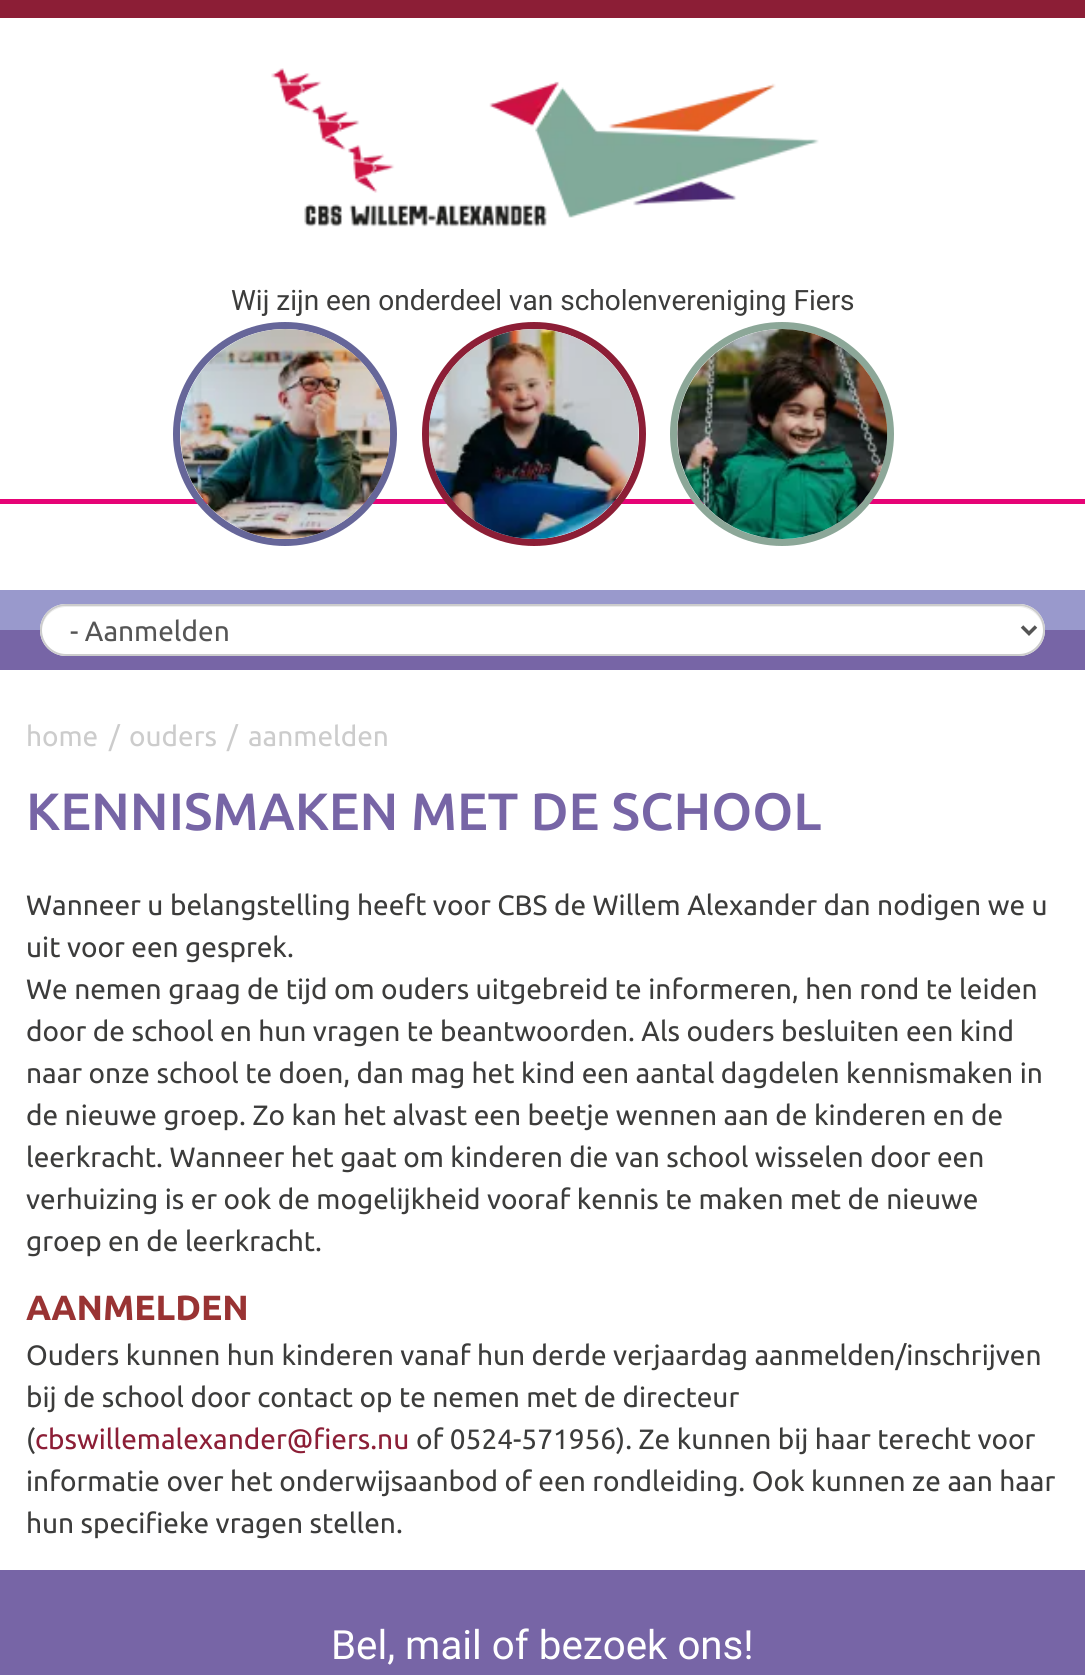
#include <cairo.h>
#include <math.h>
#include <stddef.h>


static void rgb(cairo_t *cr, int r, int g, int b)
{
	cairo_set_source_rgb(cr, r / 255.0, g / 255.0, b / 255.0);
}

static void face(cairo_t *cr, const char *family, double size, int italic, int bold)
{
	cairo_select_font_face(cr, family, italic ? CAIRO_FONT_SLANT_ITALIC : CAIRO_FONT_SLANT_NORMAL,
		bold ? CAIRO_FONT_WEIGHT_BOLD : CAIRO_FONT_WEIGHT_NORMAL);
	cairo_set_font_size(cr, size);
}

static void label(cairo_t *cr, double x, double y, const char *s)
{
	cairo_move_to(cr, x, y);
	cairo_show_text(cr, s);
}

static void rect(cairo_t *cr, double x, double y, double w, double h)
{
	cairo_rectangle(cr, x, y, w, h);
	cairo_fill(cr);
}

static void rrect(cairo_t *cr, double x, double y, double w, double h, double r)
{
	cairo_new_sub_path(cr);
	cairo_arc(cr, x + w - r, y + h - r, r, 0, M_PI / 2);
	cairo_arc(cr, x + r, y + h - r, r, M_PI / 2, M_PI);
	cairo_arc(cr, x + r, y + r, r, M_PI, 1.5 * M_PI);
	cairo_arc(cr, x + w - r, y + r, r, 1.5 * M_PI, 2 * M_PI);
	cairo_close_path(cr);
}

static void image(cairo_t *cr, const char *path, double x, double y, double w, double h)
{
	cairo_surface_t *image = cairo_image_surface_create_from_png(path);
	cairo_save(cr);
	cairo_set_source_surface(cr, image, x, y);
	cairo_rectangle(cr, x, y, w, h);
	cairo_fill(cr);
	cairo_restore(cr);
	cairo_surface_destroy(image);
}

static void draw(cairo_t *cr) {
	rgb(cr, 255, 255, 255);
	cairo_paint(cr);
	rgb(cr, 140, 30, 54);
	rect(cr, 0, 0, 1085, 18);
	image(cr, "image0.png", 271, 68, 548, 159);
	face(cr, "Roboto", 28, 0, 0);
	rgb(cr, 60, 60, 59);
	label(cr, 231, 310, "Wij zijn een onderdeel van scholenvereniging Fiers");
	rgb(cr, 230, 3, 118);
	rect(cr, 0, 499, 1085, 5);
	cairo_new_path(cr);
	cairo_arc(cr, 285, 434, 108.5, 0, 2 * M_PI);
	rgb(cr, 102, 102, 153);
	cairo_set_line_width(cr, 7);
	cairo_stroke(cr);
	image(cr, "image1.png", 180, 329, 211, 210);
	cairo_arc(cr, 534, 434, 108.5, 0, 2 * M_PI);
	rgb(cr, 140, 30, 54);
	cairo_stroke(cr);
	image(cr, "image2.png", 428, 329, 211, 210);
	cairo_arc(cr, 782, 434, 108.5, 0, 2 * M_PI);
	rgb(cr, 140, 167, 152);
	cairo_stroke(cr);
	image(cr, "image3.png", 677, 329, 211, 210);
	rgb(cr, 153, 153, 204);
	rect(cr, 0, 590, 1085, 40);
	rgb(cr, 119, 101, 166);
	rect(cr, 0, 630, 1085, 40);
	rgb(cr, 255, 255, 255);
	rrect(cr, 40, 604, 1005, 52, 26);
	cairo_fill(cr);
	rgb(cr, 236, 236, 236);
	cairo_new_path(cr);
	cairo_move_to(cr, 66, 607);
	cairo_line_to(cr, 1018, 607);
	cairo_curve_to(cr, 1032, 607, 1043, 618, 1043, 631);
	cairo_line_to(cr, 1043, 630);
	cairo_curve_to(cr, 1043, 617, 1032, 606, 1018, 606);
	cairo_line_to(cr, 66, 606);
	cairo_curve_to(cr, 53, 606, 42, 617, 42, 630);
	cairo_line_to(cr, 42, 631);
	cairo_curve_to(cr, 42, 618, 53, 607, 66, 607);
	cairo_close_path(cr);
	cairo_fill(cr);
	rrect(cr, 41, 605, 1003, 50, 25);
	rgb(cr, 204, 204, 204);
	cairo_set_line_width(cr, 2);
	cairo_stroke(cr);
	cairo_new_path(cr);
	cairo_move_to(cr, 1022, 626.5);
	cairo_line_to(cr, 1029, 633.5);
	cairo_line_to(cr, 1036, 626.5);
	rgb(cr, 85, 85, 85);
	cairo_set_line_width(cr, 3.5);
	cairo_stroke(cr);
	face(cr, "Ubuntu", 28, 0, 0);
	label(cr, 70, 641, "- Aanmelden");
	rgb(cr, 204, 204, 204);
	label(cr, 26, 746, "home");
	label(cr, 109, 746, "/");
	label(cr, 129, 746, "ouders");
	label(cr, 227, 746, "/");
	label(cr, 248, 746, "aanmelden");
	face(cr, "Ubuntu Medium", 52.5, 0, 0);
	rgb(cr, 119, 101, 166);
	label(cr, 26, 830, "KENNISMAKEN MET DE SCHOOL");
	face(cr, "Ubuntu", 28, 0, 0);
	rgb(cr, 60, 60, 59);
	label(cr, 26, 915, "Wanneer u belangstelling heeft voor CBS de Willem Alexander dan nodigen we u");
	label(cr, 26, 957, "uit voor een gesprek.");
	label(cr, 26, 999, "We nemen graag de tijd om ouders uitgebreid te informeren, hen rond te leiden");
	label(cr, 26, 1041, "door de school en hun vragen te beantwoorden. Als ouders besluiten een kind");
	label(cr, 26, 1083, "naar onze school te doen, dan mag het kind een aantal dagdelen kennismaken in");
	label(cr, 26, 1125, "de nieuwe groep. Zo kan het alvast een beetje wennen aan de kinderen en de");
	label(cr, 26, 1167, "leerkracht. Wanneer het gaat om kinderen die van school wisselen door een");
	label(cr, 26, 1209, "verhuizing is er ook de mogelijkheid vooraf kennis te maken met de nieuwe");
	label(cr, 26, 1251, "groep en de leerkracht.");
	face(cr, "Ubuntu", 35, 0, 1);
	rgb(cr, 153, 51, 51);
	label(cr, 26, 1320, "AANMELDEN");
	face(cr, "Ubuntu", 28, 0, 0);
	rgb(cr, 60, 60, 59);
	label(cr, 26, 1365, "Ouders kunnen hun kinderen vanaf hun derde verjaardag aanmelden/inschrijven");
	label(cr, 26, 1407, "bij de school door contact op te nemen met de directeur");
	label(cr, 26, 1449, "(");
	rgb(cr, 140, 30, 54);
	label(cr, 35, 1449, "cbswillemalexander@fiers.nu");
	rgb(cr, 60, 60, 59);
	label(cr, 416, 1449, "of 0524-571956). Ze kunnen bij haar terecht voor");
	label(cr, 26, 1491, "informatie over het onderwijsaanbod of een rondleiding. Ook kunnen ze aan haar");
	label(cr, 26, 1533, "hun specifieke vragen stellen.");
	rgb(cr, 119, 101, 166);
	rect(cr, 0, 1570, 1085, 105);
	face(cr, "Roboto", 40.25, 0, 0);
	rgb(cr, 255, 255, 255);
	label(cr, 331, 1659, "Bel, mail of bezoek ons!");
}

int main(void) {
	cairo_surface_t *surface = cairo_image_surface_create(CAIRO_FORMAT_RGB24, 1085, 1675);
	cairo_t *cr = cairo_create(surface);
	cairo_font_options_t *options = cairo_font_options_create();
	cairo_font_options_set_hint_metrics(options, CAIRO_HINT_METRICS_OFF);
	cairo_font_options_set_hint_style(options, CAIRO_HINT_STYLE_NONE);
	cairo_set_font_options(cr, options);
	cairo_set_miter_limit(cr, 4);
	draw(cr);
	cairo_surface_write_to_png(surface, "render.png");
	cairo_font_options_destroy(options);
	cairo_destroy(cr);
	cairo_surface_destroy(surface);
	return 0;
}
